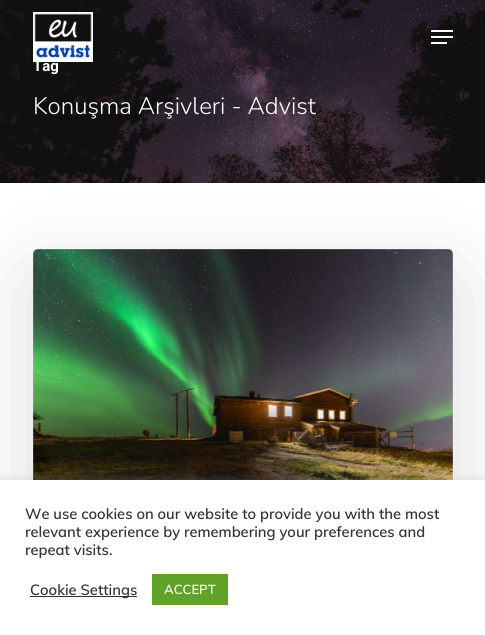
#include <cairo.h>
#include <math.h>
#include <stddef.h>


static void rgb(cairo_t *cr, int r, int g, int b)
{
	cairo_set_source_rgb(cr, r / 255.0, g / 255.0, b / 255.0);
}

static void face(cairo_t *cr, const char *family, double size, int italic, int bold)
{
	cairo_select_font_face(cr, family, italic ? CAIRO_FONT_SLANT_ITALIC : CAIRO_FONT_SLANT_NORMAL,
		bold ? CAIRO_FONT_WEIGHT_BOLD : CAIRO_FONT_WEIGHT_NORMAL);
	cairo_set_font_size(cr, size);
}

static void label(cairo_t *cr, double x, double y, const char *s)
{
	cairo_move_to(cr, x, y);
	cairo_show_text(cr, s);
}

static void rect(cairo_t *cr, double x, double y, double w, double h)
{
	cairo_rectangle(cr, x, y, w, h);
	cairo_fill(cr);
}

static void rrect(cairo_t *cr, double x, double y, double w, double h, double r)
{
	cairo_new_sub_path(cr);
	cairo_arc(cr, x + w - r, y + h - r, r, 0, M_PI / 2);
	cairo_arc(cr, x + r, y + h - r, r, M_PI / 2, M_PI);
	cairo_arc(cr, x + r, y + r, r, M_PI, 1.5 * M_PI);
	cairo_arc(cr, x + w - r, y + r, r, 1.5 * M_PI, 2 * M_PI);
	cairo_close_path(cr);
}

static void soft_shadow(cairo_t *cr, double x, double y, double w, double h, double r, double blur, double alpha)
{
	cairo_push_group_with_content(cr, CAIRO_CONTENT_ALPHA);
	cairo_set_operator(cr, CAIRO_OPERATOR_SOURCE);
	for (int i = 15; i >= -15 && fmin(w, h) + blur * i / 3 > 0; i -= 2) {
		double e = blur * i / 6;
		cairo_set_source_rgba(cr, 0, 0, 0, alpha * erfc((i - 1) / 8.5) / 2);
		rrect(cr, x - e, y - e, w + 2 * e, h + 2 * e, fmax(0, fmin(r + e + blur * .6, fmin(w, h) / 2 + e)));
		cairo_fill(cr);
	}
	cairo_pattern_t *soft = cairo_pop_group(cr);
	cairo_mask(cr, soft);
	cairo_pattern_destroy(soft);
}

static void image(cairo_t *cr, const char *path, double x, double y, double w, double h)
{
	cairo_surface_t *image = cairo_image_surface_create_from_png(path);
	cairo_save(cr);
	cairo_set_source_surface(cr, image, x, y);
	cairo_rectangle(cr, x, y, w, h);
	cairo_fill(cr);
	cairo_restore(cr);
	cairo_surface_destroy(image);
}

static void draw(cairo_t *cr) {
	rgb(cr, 255, 255, 255);
	cairo_paint(cr);
	image(cr, "image1.png", 0, 0, 485, 183);
	face(cr, "Roboto", 15, 0, 1);
	rgb(cr, 255, 255, 255);
	label(cr, 33, 71, "Tag");
	image(cr, "image0.png", 33, 12, 60, 50);
	rect(cr, 431, 30, 22, 2);
	rect(cr, 431, 42, 16, 2);
	rect(cr, 431, 36, 22, 2);
	face(cr, "Nunito Light", 24, 0, 0);
	label(cr, 33, 114, "Konuşma Arşivleri - Advist");
	rgb(cr, 0, 0, 0);
	soft_shadow(cr, 33, 279, 420, 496, 5, 45, 0.14);
	image(cr, "image2.png", 33, 249, 420, 231);
	rgb(cr, 172, 171, 171);
	soft_shadow(cr, 0, 479, 485, 155, 0, 5, 0.3);
	rgb(cr, 255, 255, 255);
	rect(cr, 0, 480, 485, 155);
	face(cr, "Muli SemiBold", 14.7, 0, 0);
	rgb(cr, 51, 51, 51);
	label(cr, 25, 519, "We use cookies on our website to provide you with the most");
	label(cr, 25, 537, "relevant experience by remembering your preferences and");
	label(cr, 25, 555, "repeat visits.");
	rect(cr, 30, 596, 107, 1);
	label(cr, 30, 595, "Cookie Settings");
	rgb(cr, 97, 162, 41);
	rect(cr, 152, 574, 76, 31);
	face(cr, "Muli SemiBold", 13, 0, 0);
	rgb(cr, 255, 255, 255);
	label(cr, 164, 594, "ACCEPT");
}

int main(void) {
	cairo_surface_t *surface = cairo_image_surface_create(CAIRO_FORMAT_RGB24, 485, 635);
	cairo_t *cr = cairo_create(surface);
	cairo_font_options_t *options = cairo_font_options_create();
	cairo_font_options_set_hint_metrics(options, CAIRO_HINT_METRICS_OFF);
	cairo_font_options_set_hint_style(options, CAIRO_HINT_STYLE_NONE);
	cairo_set_font_options(cr, options);
	cairo_set_miter_limit(cr, 4);
	draw(cr);
	cairo_surface_write_to_png(surface, "render.png");
	cairo_font_options_destroy(options);
	cairo_destroy(cr);
	cairo_surface_destroy(surface);
	return 0;
}
